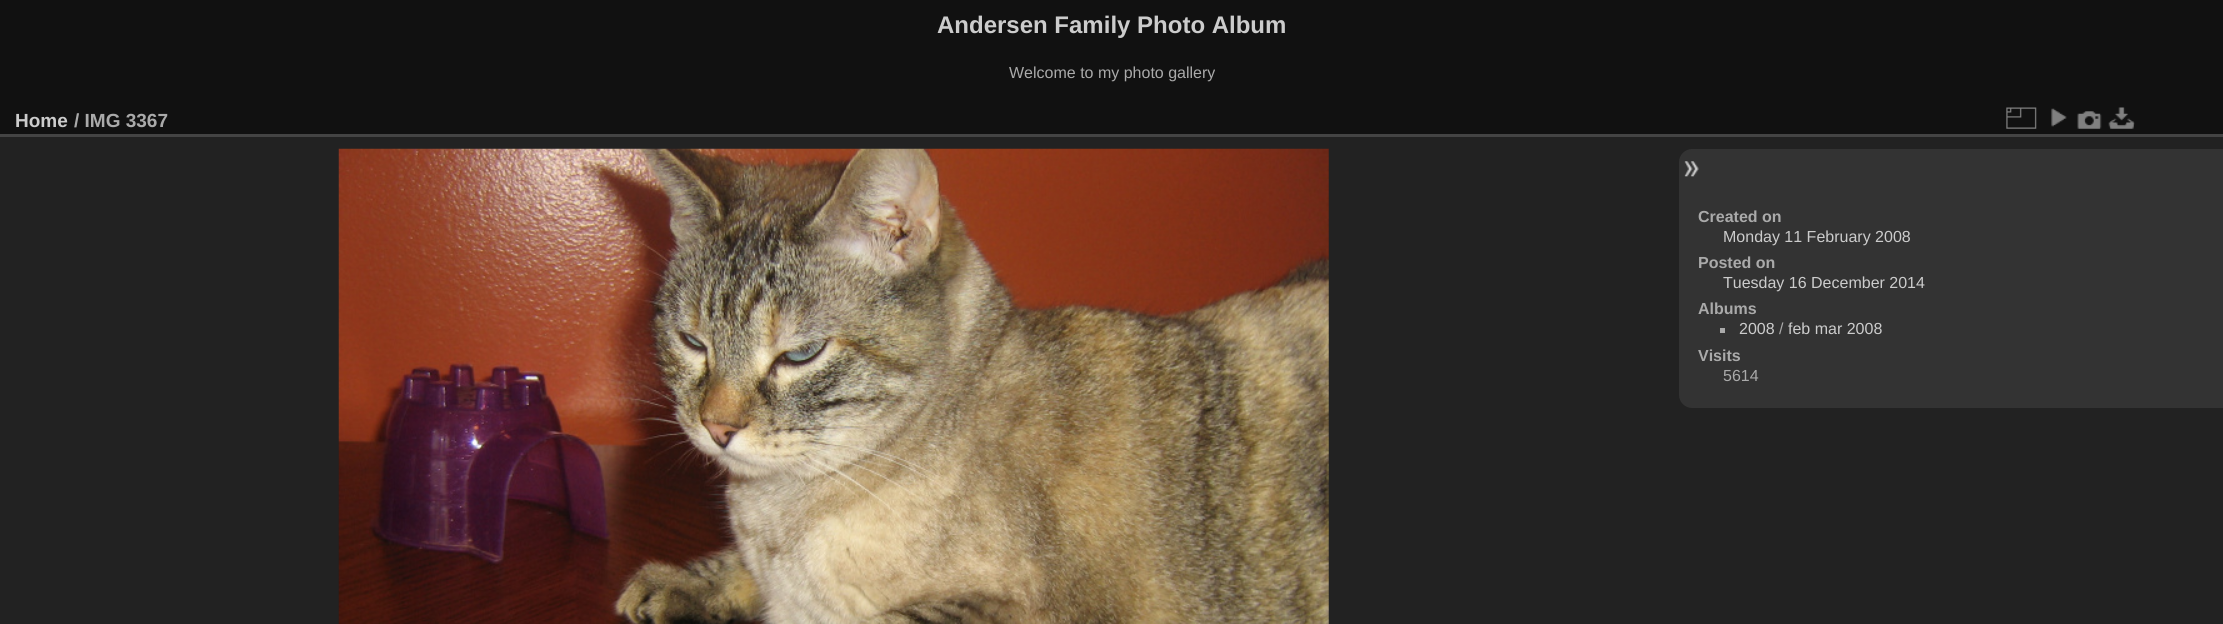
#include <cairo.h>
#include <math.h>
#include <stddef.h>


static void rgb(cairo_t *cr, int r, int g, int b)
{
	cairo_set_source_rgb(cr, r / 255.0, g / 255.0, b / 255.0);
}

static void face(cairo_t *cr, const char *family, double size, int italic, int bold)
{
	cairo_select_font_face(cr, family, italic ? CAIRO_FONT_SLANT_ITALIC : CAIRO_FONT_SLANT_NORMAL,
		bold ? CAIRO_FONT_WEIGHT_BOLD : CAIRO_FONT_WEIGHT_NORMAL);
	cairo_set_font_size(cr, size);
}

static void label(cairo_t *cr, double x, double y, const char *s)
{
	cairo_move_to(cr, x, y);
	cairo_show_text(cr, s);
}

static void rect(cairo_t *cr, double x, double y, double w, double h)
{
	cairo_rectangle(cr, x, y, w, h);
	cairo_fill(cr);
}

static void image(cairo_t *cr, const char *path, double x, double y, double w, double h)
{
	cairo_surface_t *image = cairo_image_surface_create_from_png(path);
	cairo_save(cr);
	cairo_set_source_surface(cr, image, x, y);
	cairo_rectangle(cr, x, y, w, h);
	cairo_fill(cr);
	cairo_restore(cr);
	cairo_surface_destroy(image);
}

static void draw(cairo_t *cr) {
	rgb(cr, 17, 17, 17);
	cairo_paint(cr);
	face(cr, "Liberation Sans", 24, 0, 1);
	rgb(cr, 204, 204, 204);
	label(cr, 937, 33, "Andersen Family Photo Album");
	face(cr, "Liberation Sans", 16, 0, 0);
	rgb(cr, 170, 170, 170);
	label(cr, 1009, 78, "Welcome to my photo gallery");
	rgb(cr, 34, 34, 34);
	rect(cr, 0, 137, 2223, 487);
	rgb(cr, 68, 68, 68);
	rect(cr, 0, 134, 2223, 3);
	face(cr, "Liberation Sans", 19, 0, 1);
	rgb(cr, 204, 204, 204);
	label(cr, 15, 127, "Home");
	rgb(cr, 170, 170, 170);
	label(cr, 74, 127, "/ IMG 3367");
	image(cr, "image0.png", 2006, 107, 31, 22);
	image(cr, "image1.png", 2051, 108, 16, 19);
	image(cr, "image2.png", 2077, 111, 25, 18);
	image(cr, "image3.png", 2108, 107, 27, 22);
	image(cr, "image4.png", 338, 148, 991, 476);
	rgb(cr, 51, 51, 51);
	cairo_new_path(cr);
	cairo_move_to(cr, 1692, 149);
	cairo_line_to(cr, 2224, 149);
	cairo_line_to(cr, 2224, 408);
	cairo_line_to(cr, 1692, 408);
	cairo_curve_to(cr, 1685, 408, 1679, 402, 1679, 395);
	cairo_line_to(cr, 1679, 162);
	cairo_curve_to(cr, 1679, 155, 1685, 149, 1692, 149);
	cairo_close_path(cr);
	cairo_fill(cr);
	image(cr, "image5.png", 1684, 161, 15, 16);
	face(cr, "Liberation Sans", 16, 0, 1);
	rgb(cr, 170, 170, 170);
	label(cr, 1698, 222, "Created on");
	face(cr, "Liberation Sans", 16, 0, 0);
	rgb(cr, 204, 204, 204);
	label(cr, 1723, 242, "Monday 11 February 2008");
	face(cr, "Liberation Sans", 16, 0, 1);
	rgb(cr, 170, 170, 170);
	label(cr, 1698, 268, "Posted on");
	face(cr, "Liberation Sans", 16, 0, 0);
	rgb(cr, 204, 204, 204);
	label(cr, 1723, 288, "Tuesday 16 December 2014");
	face(cr, "Liberation Sans", 16, 0, 1);
	rgb(cr, 170, 170, 170);
	label(cr, 1698, 314, "Albums");
	rect(cr, 1720, 328, 5, 5);
	face(cr, "Liberation Sans", 16, 0, 0);
	rgb(cr, 204, 204, 204);
	label(cr, 1739, 334, "2008");
	rgb(cr, 170, 170, 170);
	label(cr, 1779, 334, "/");
	rgb(cr, 204, 204, 204);
	label(cr, 1788, 334, "feb mar 2008");
	face(cr, "Liberation Sans", 16, 0, 1);
	rgb(cr, 170, 170, 170);
	label(cr, 1698, 361, "Visits");
	face(cr, "Liberation Sans", 16, 0, 0);
	label(cr, 1723, 381, "5614");
}

int main(void) {
	cairo_surface_t *surface = cairo_image_surface_create(CAIRO_FORMAT_RGB24, 2223, 624);
	cairo_t *cr = cairo_create(surface);
	cairo_font_options_t *options = cairo_font_options_create();
	cairo_font_options_set_hint_metrics(options, CAIRO_HINT_METRICS_OFF);
	cairo_font_options_set_hint_style(options, CAIRO_HINT_STYLE_NONE);
	cairo_set_font_options(cr, options);
	cairo_set_miter_limit(cr, 4);
	draw(cr);
	cairo_surface_write_to_png(surface, "render.png");
	cairo_font_options_destroy(options);
	cairo_destroy(cr);
	cairo_surface_destroy(surface);
	return 0;
}
